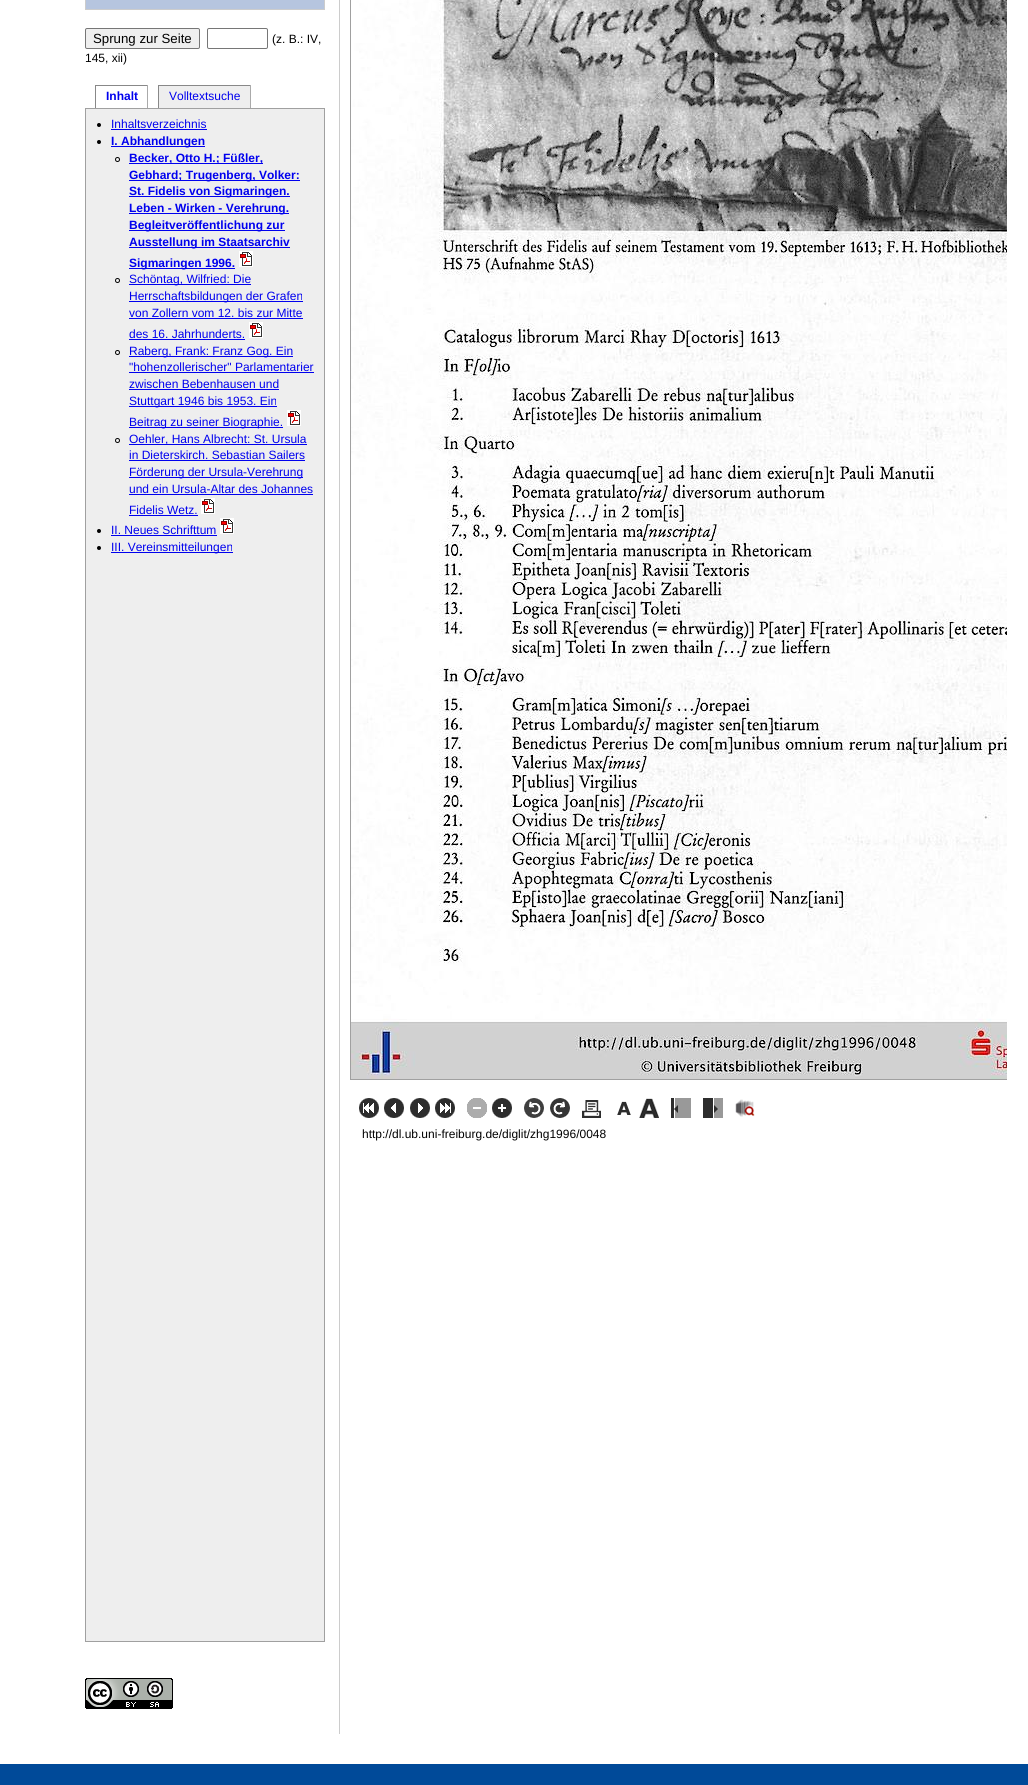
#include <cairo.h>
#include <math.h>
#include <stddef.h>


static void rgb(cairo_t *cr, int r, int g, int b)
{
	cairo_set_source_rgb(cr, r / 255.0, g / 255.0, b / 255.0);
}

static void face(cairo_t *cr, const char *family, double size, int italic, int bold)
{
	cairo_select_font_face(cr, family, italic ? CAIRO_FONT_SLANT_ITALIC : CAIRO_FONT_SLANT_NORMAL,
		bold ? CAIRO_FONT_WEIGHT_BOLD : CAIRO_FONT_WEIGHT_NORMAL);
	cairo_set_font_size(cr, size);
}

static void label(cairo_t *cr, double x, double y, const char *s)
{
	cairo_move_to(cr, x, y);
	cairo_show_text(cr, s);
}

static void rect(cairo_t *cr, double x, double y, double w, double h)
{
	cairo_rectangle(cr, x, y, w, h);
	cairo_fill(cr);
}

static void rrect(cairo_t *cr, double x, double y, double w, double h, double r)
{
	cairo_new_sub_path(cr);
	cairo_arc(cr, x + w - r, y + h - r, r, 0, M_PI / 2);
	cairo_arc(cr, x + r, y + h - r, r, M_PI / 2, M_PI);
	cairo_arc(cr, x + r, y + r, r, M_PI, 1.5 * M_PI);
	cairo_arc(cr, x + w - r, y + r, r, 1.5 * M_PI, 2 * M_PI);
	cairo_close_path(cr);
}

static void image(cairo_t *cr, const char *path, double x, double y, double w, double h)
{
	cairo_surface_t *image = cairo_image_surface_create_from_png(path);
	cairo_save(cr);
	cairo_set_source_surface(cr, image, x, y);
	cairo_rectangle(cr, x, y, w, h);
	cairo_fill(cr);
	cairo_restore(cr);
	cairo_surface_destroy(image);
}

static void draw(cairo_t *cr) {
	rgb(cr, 255, 255, 255);
	cairo_paint(cr);
	rgb(cr, 182, 197, 223);
	cairo_rectangle(cr, 85.5, -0.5, 239, 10);
	cairo_fill_preserve(cr);
	rgb(cr, 204, 204, 204);
	cairo_set_line_width(cr, 1);
	cairo_stroke(cr);
	rgb(cr, 239, 239, 239);
	rrect(cr, 85.5, 28.5, 114, 20, 1.5);
	cairo_fill_preserve(cr);
	rgb(cr, 118, 118, 118);
	cairo_stroke(cr);
	face(cr, "Liberation Sans", 13.25, 0, 0);
	rgb(cr, 0, 0, 0);
	label(cr, 93, 43, "Sprung zur Seite");
	rrect(cr, 207.5, 28.5, 60, 20, 1.5);
	rgb(cr, 118, 118, 118);
	cairo_stroke(cr);
	face(cr, "Liberation Sans", 12, 0, 0);
	rgb(cr, 0, 0, 0);
	label(cr, 272, 43, "(z. B.: IV,");
	label(cr, 85, 62, "145, xii)");
	rgb(cr, 136, 136, 136);
	rect(cr, 95, 85, 53, 1);
	rgb(cr, 170, 170, 170);
	rect(cr, 147, 85, 1, 23);
	rgb(cr, 136, 136, 136);
	rect(cr, 95, 85, 1, 23);
	face(cr, "Liberation Sans", 12, 0, 1);
	rgb(cr, 0, 0, 238);
	label(cr, 106, 100, "Inhalt");
	rgb(cr, 238, 238, 238);
	rect(cr, 159, 86, 91, 22);
	rgb(cr, 136, 136, 136);
	rect(cr, 158, 85, 93, 1);
	rgb(cr, 170, 170, 170);
	rect(cr, 250, 85, 1, 23);
	rgb(cr, 136, 136, 136);
	rect(cr, 158, 85, 1, 23);
	face(cr, "Liberation Sans", 12, 0, 0);
	rgb(cr, 0, 0, 238);
	label(cr, 169, 100, "Volltextsuche");
	rgb(cr, 238, 238, 238);
	cairo_rectangle(cr, 85.5, 108.5, 239, 1533);
	cairo_fill_preserve(cr);
	rgb(cr, 160, 160, 160);
	cairo_stroke(cr);
	rgb(cr, 0, 0, 0);
	cairo_arc(cr, 99, 125, 2, 0, 2 * M_PI);
	cairo_fill(cr);
	rgb(cr, 0, 0, 238);
	label(cr, 111, 128, "Inhaltsverzeichnis");
	rect(cr, 111, 129, 96, 1);
	rgb(cr, 0, 0, 0);
	cairo_new_path(cr);
	cairo_arc(cr, 99, 142, 2, 0, 2 * M_PI);
	cairo_fill(cr);
	rgb(cr, 0, 0, 238);
	rect(cr, 111, 146, 94, 1);
	face(cr, "Liberation Sans", 12, 0, 1);
	label(cr, 111, 145, "I. Abhandlungen");
	cairo_new_path(cr);
	cairo_arc(cr, 117.5, 159.5, 2, 0, 2 * M_PI);
	rgb(cr, 0, 0, 0);
	cairo_stroke(cr);
	rgb(cr, 0, 0, 238);
	rect(cr, 129, 163, 134, 1);
	label(cr, 129, 162, "Becker, Otto H.; Füßler,");
	rect(cr, 129, 180, 171, 1);
	label(cr, 129, 179, "Gebhard; Trugenberg, Volker:");
	rect(cr, 129, 196, 161, 1);
	label(cr, 129, 195, "St. Fidelis von Sigmaringen.");
	rect(cr, 129, 213, 160, 1);
	label(cr, 129, 212, "Leben - Wirken - Verehrung.");
	rect(cr, 129, 230, 156, 1);
	label(cr, 129, 229, "Begleitveröffentlichung zur");
	rect(cr, 129, 247, 161, 1);
	label(cr, 129, 246, "Ausstellung im Staatsarchiv");
	rect(cr, 129, 268, 106, 1);
	label(cr, 129, 267, "Sigmaringen 1996.");
	image(cr, "image0.png", 239, 251, 14, 16);
	cairo_arc(cr, 117.5, 280.5, 2, 0, 2 * M_PI);
	rgb(cr, 0, 0, 0);
	cairo_stroke(cr);
	rgb(cr, 0, 0, 238);
	rect(cr, 129, 284, 122, 1);
	face(cr, "Liberation Sans", 12, 0, 0);
	label(cr, 129, 283, "Schöntag, Wilfried: Die");
	rect(cr, 129, 301, 174, 1);
	label(cr, 129, 300, "Herrschaftsbildungen der Grafen");
	label(cr, 129, 317, "von Zollern vom 12. bis zur Mitte");
	rect(cr, 129, 318, 174, 1);
	label(cr, 129, 338, "des 16. Jahrhunderts.");
	rect(cr, 129, 339, 116, 1);
	image(cr, "image0.png", 249, 322, 14, 16);
	cairo_arc(cr, 117.5, 352.5, 2, 0, 2 * M_PI);
	rgb(cr, 0, 0, 0);
	cairo_stroke(cr);
	rgb(cr, 0, 0, 238);
	rect(cr, 129, 356, 164, 1);
	label(cr, 129, 355, "Raberg, Frank: Franz Gog. Ein");
	label(cr, 129, 371, "\"hohenzollerischer\" Parlamentarier");
	rect(cr, 129, 372, 185, 1);
	label(cr, 129, 388, "zwischen Bebenhausen und");
	rect(cr, 129, 389, 150, 1);
	rect(cr, 129, 406, 148, 1);
	label(cr, 129, 405, "Stuttgart 1946 bis 1953. Ein");
	rect(cr, 129, 427, 154, 1);
	label(cr, 129, 426, "Beitrag zu seiner Biographie.");
	image(cr, "image0.png", 287, 410, 14, 16);
	cairo_arc(cr, 117.5, 440.5, 2, 0, 2 * M_PI);
	rgb(cr, 0, 0, 0);
	cairo_stroke(cr);
	rgb(cr, 0, 0, 238);
	rect(cr, 129, 444, 178, 1);
	label(cr, 129, 443, "Oehler, Hans Albrecht: St. Ursula");
	label(cr, 129, 459, "in Dieterskirch. Sebastian Sailers");
	rect(cr, 129, 460, 176, 1);
	rect(cr, 129, 477, 174, 1);
	label(cr, 129, 476, "Förderung der Ursula-Verehrung");
	label(cr, 129, 493, "und ein Ursula-Altar des Johannes");
	rect(cr, 129, 494, 184, 1);
	label(cr, 129, 514, "Fidelis Wetz.");
	rect(cr, 129, 515, 69, 1);
	image(cr, "image0.png", 201, 498, 14, 16);
	rgb(cr, 0, 0, 0);
	cairo_arc(cr, 99, 531, 2, 0, 2 * M_PI);
	cairo_fill(cr);
	rgb(cr, 0, 0, 238);
	label(cr, 111, 534, "II. Neues Schrifttum");
	rect(cr, 111, 535, 106, 1);
	image(cr, "image0.png", 220, 518, 14, 16);
	rgb(cr, 0, 0, 0);
	cairo_arc(cr, 99, 548, 2, 0, 2 * M_PI);
	cairo_fill(cr);
	rgb(cr, 0, 0, 238);
	rect(cr, 111, 552, 122, 1);
	label(cr, 111, 551, "III. Vereinsmitteilungen");
	image(cr, "image1.png", 85, 1678, 88, 31);
	rgb(cr, 204, 204, 204);
	rect(cr, 339, 0, 1, 1734);
	cairo_save(cr);
	cairo_rectangle(cr, 85, 0, 922, 1734);
	cairo_clip(cr);
	cairo_rectangle(cr, 350.5, -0.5, 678, 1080);
	rgb(cr, 160, 160, 160);
	cairo_stroke(cr);
	cairo_restore(cr);
	image(cr, "image2.png", 351, 0, 656, 1079);
	image(cr, "image3.png", 359, 1098, 20, 20);
	image(cr, "image4.png", 384, 1098, 20, 20);
	image(cr, "image5.png", 410, 1098, 20, 20);
	image(cr, "image6.png", 435, 1098, 20, 20);
	image(cr, "image7.png", 467, 1098, 20, 20);
	image(cr, "image8.png", 492, 1098, 20, 20);
	image(cr, "image9.png", 524, 1098, 20, 20);
	image(cr, "image10.png", 550, 1098, 20, 20);
	image(cr, "image11.png", 582, 1100, 19, 18);
	image(cr, "image12.png", 617, 1101, 14, 14);
	image(cr, "image13.png", 639, 1098, 20, 20);
	image(cr, "image14.png", 671, 1098, 20, 20);
	image(cr, "image15.png", 703, 1098, 20, 20);
	image(cr, "image16.png", 735, 1099, 20, 18);
	rgb(cr, 0, 0, 0);
	label(cr, 362, 1138, "http://dl.ub.uni-freiburg.de/diglit/zhg1996/0048");
	rgb(cr, 0, 74, 153);
	rect(cr, 0, 1764, 1028, 21);
}

int main(void) {
	cairo_surface_t *surface = cairo_image_surface_create(CAIRO_FORMAT_RGB24, 1028, 1785);
	cairo_t *cr = cairo_create(surface);
	cairo_font_options_t *options = cairo_font_options_create();
	cairo_font_options_set_hint_metrics(options, CAIRO_HINT_METRICS_OFF);
	cairo_font_options_set_hint_style(options, CAIRO_HINT_STYLE_NONE);
	cairo_set_font_options(cr, options);
	cairo_set_miter_limit(cr, 4);
	draw(cr);
	cairo_surface_write_to_png(surface, "render.png");
	cairo_font_options_destroy(options);
	cairo_destroy(cr);
	cairo_surface_destroy(surface);
	return 0;
}
